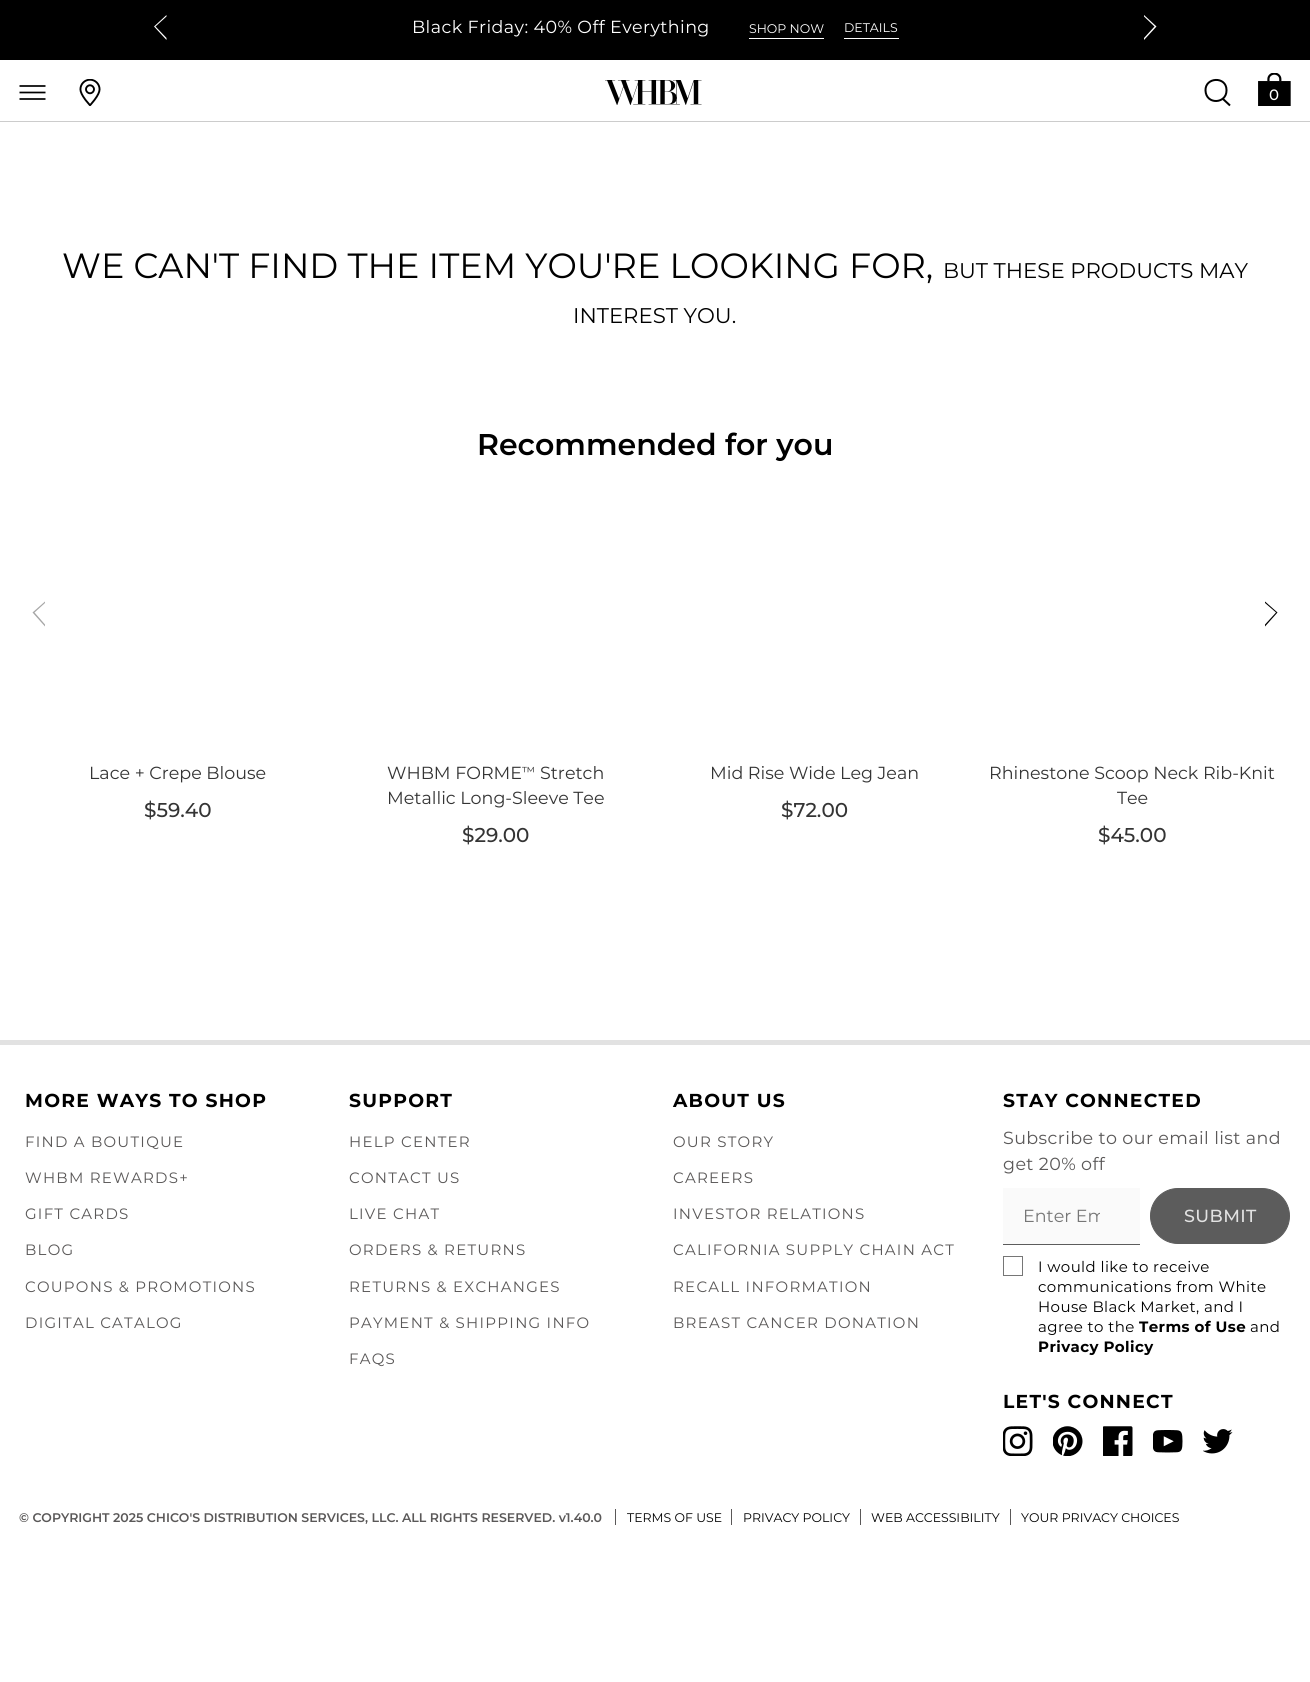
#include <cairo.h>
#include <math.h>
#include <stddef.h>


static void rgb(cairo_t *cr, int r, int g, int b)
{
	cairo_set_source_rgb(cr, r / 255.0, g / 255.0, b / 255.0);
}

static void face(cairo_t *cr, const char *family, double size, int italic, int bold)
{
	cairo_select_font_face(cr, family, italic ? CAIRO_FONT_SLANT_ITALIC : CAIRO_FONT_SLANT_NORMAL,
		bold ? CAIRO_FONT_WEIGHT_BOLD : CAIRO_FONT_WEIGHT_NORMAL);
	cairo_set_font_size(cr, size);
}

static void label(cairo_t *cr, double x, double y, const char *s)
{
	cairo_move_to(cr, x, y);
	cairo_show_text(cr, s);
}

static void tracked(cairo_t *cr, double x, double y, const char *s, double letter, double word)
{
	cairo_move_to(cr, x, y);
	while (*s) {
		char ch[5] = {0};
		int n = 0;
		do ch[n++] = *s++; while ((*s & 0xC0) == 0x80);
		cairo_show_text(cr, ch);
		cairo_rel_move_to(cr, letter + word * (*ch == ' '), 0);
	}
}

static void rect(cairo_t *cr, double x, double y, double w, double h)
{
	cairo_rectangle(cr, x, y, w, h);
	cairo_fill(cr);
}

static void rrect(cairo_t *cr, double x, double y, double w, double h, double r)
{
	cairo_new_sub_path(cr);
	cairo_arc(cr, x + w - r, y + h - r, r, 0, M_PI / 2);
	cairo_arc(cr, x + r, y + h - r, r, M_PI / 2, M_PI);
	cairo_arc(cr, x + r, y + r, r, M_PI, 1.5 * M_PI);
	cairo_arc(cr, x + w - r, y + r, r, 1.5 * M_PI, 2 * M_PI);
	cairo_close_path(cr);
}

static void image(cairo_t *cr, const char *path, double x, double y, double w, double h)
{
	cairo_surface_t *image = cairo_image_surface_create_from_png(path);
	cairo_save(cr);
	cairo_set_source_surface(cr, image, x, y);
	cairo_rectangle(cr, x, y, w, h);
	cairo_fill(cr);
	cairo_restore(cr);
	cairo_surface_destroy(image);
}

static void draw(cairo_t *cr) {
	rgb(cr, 255, 255, 255);
	cairo_paint(cr);
	rgb(cr, 0, 0, 0);
	rect(cr, 0, 0, 1310, 60);
	rgb(cr, 255, 255, 255);
	cairo_new_path(cr);
	cairo_move_to(cr, 166.5, 15);
	cairo_line_to(cr, 154, 26.5);
	cairo_line_to(cr, 166.5, 40);
	cairo_line_to(cr, 166.5, 38);
	cairo_line_to(cr, 155.5, 26.5);
	cairo_line_to(cr, 166.5, 16.5);
	cairo_close_path(cr);
	cairo_fill(cr);
	face(cr, "Montserrat", 17.5, 0, 0);
	tracked(cr, 412, 33, "Black Friday: 40% Off Everything", 0.4, 0);
	face(cr, "Montserrat", 12.5, 0, 0);
	label(cr, 749, 33, "SHOP NOW");
	rect(cr, 749, 38, 75, 1);
	label(cr, 844, 32, "DETAILS");
	rect(cr, 844, 38, 55, 1);
	cairo_new_path(cr);
	cairo_move_to(cr, 1144, 15);
	cairo_line_to(cr, 1156.5, 26.5);
	cairo_line_to(cr, 1144, 40);
	cairo_line_to(cr, 1144, 38);
	cairo_line_to(cr, 1154.5, 26.5);
	cairo_line_to(cr, 1144, 16.5);
	cairo_close_path(cr);
	cairo_fill(cr);
	rgb(cr, 204, 204, 204);
	rect(cr, 0, 121, 1310, 1);
	cairo_new_path(cr);
	cairo_move_to(cr, 19.5, 86);
	cairo_line_to(cr, 45.5, 86);
	cairo_move_to(cr, 19.5, 92.5);
	cairo_line_to(cr, 45.5, 92.5);
	cairo_move_to(cr, 19.5, 99);
	cairo_line_to(cr, 45.5, 99);
	rgb(cr, 0, 0, 0);
	cairo_set_line_width(cr, 1.7);
	cairo_stroke(cr);
	image(cr, "image0.png", 79, 79, 22, 27);
	image(cr, "image1.png", 605, 80, 97, 25);
	cairo_new_path(cr);
	cairo_move_to(cr, 1226.5, 90.5);
	cairo_curve_to(cr, 1226.5, 104, 1206, 105, 1205.5, 90.5);
	cairo_curve_to(cr, 1205, 77, 1226.5, 76, 1226.5, 90);
	cairo_close_path(cr);
	cairo_move_to(cr, 1230, 105.5);
	cairo_line_to(cr, 1222.5, 98.5);
	cairo_set_line_width(cr, 2);
	cairo_stroke(cr);
	image(cr, "image2.png", 1258, 73, 33, 33);
	face(cr, "Montserrat Medium", 15, 0, 0);
	rgb(cr, 255, 255, 255);
	label(cr, 1269, 100, "0");
	face(cr, "Montserrat", 35, 0, 0);
	rgb(cr, 0, 0, 0);
	label(cr, 62, 278, "WE CAN'T FIND THE ITEM YOU'RE LOOKING FOR,");
	face(cr, "Montserrat", 21.25, 0, 0);
	label(cr, 943, 278, "BUT THESE PRODUCTS MAY");
	label(cr, 573, 323, "INTEREST YOU.");
	face(cr, "Montserrat SemiBold", 30, 0, 0);
	label(cr, 477, 455, "Recommended for you");
	rgb(cr, 166, 166, 166);
	cairo_new_path(cr);
	cairo_move_to(cr, 45, 601.5);
	cairo_line_to(cr, 32.5, 612.5);
	cairo_line_to(cr, 45, 626.5);
	cairo_line_to(cr, 45, 624.5);
	cairo_line_to(cr, 34.5, 612.5);
	cairo_line_to(cr, 45, 603);
	cairo_close_path(cr);
	cairo_fill(cr);
	rgb(cr, 0, 0, 0);
	cairo_new_path(cr);
	cairo_move_to(cr, 1265, 601.5);
	cairo_line_to(cr, 1277.5, 612.5);
	cairo_line_to(cr, 1265, 626.5);
	cairo_line_to(cr, 1265, 624.5);
	cairo_line_to(cr, 1276, 612.5);
	cairo_line_to(cr, 1265, 603);
	cairo_close_path(cr);
	cairo_fill(cr);
	face(cr, "Montserrat", 17.5, 0, 0);
	rgb(cr, 52, 52, 52);
	label(cr, 89, 779, "Lace + Crepe Blouse");
	face(cr, "Montserrat Medium", 20, 0, 0);
	label(cr, 144, 817, "$59.40");
	face(cr, "Montserrat", 17.5, 0, 0);
	label(cr, 387, 779, "WHBM FORME");
	face(cr, "Montserrat", 13, 0, 0);
	label(cr, 522, 776, "™");
	face(cr, "Montserrat", 17.5, 0, 0);
	label(cr, 540, 779, "Stretch");
	label(cr, 387, 804, "Metallic Long-Sleeve Tee");
	face(cr, "Montserrat Medium", 20, 0, 0);
	label(cr, 462, 842, "$29.00");
	face(cr, "Montserrat", 17.5, 0, 0);
	label(cr, 710, 779, "Mid Rise Wide Leg Jean");
	face(cr, "Montserrat Medium", 20, 0, 0);
	label(cr, 781, 817, "$72.00");
	face(cr, "Montserrat", 17.5, 0, 0);
	label(cr, 989, 779, "Rhinestone Scoop Neck Rib-Knit");
	label(cr, 1117, 804, "Tee");
	face(cr, "Montserrat Medium", 20, 0, 0);
	label(cr, 1098, 842, "$45.00");
	rgb(cr, 226, 226, 226);
	rect(cr, 0, 1040, 1310, 5);
	face(cr, "Montserrat", 18.75, 0, 1);
	rgb(cr, 0, 0, 0);
	tracked(cr, 25, 1107, "MORE WAYS TO SHOP", 1.25, 0);
	face(cr, "Montserrat", 15, 0, 0);
	rgb(cr, 90, 88, 88);
	tracked(cr, 25, 1147, "FIND A BOUTIQUE", 1.25, 0);
	tracked(cr, 25, 1183, "WHBM REWARDS+", 1.25, 0);
	tracked(cr, 25, 1219, "GIFT CARDS", 1.25, 0);
	tracked(cr, 25, 1255, "BLOG", 1.25, 0);
	tracked(cr, 25, 1292, "COUPONS & PROMOTIONS", 1.25, 0);
	tracked(cr, 25, 1328, "DIGITAL CATALOG", 1.25, 0);
	face(cr, "Montserrat", 18.75, 0, 1);
	rgb(cr, 0, 0, 0);
	tracked(cr, 349, 1107, "SUPPORT", 1.25, 0);
	face(cr, "Montserrat", 15, 0, 0);
	rgb(cr, 90, 88, 88);
	tracked(cr, 349, 1147, "HELP CENTER", 1.25, 0);
	tracked(cr, 349, 1183, "CONTACT US", 1.25, 0);
	tracked(cr, 349, 1219, "LIVE CHAT", 1.25, 0);
	tracked(cr, 349, 1255, "ORDERS & RETURNS", 1.25, 0);
	tracked(cr, 349, 1292, "RETURNS & EXCHANGES", 1.25, 0);
	tracked(cr, 349, 1328, "PAYMENT & SHIPPING INFO", 1.25, 0);
	tracked(cr, 349, 1364, "FAQS", 1.25, 0);
	face(cr, "Montserrat", 18.75, 0, 1);
	rgb(cr, 0, 0, 0);
	tracked(cr, 673, 1107, "ABOUT US", 1.25, 0);
	face(cr, "Montserrat", 15, 0, 0);
	rgb(cr, 90, 88, 88);
	tracked(cr, 673, 1147, "OUR STORY", 1.25, 0);
	tracked(cr, 673, 1183, "CAREERS", 1.25, 0);
	tracked(cr, 673, 1219, "INVESTOR RELATIONS", 1.25, 0);
	tracked(cr, 673, 1255, "CALIFORNIA SUPPLY CHAIN ACT", 1.25, 0);
	tracked(cr, 673, 1292, "RECALL INFORMATION", 1.25, 0);
	tracked(cr, 673, 1328, "BREAST CANCER DONATION", 1.25, 0);
	face(cr, "Montserrat", 18.75, 0, 1);
	rgb(cr, 0, 0, 0);
	tracked(cr, 1003, 1107, "STAY CONNECTED", 1.25, 0);
	face(cr, "Montserrat", 17.5, 0, 0);
	rgb(cr, 90, 88, 88);
	tracked(cr, 1003, 1144, "Subscribe to our email list and", 0.4, 0);
	tracked(cr, 1003, 1170, "get 20% off", 0.4, 0);
	rgb(cr, 250, 250, 250);
	rect(cr, 1003, 1188, 137, 56);
	rgb(cr, 92, 92, 92);
	rect(cr, 1003, 1244, 137, 1);
	cairo_save(cr);
	cairo_rectangle(cr, 1023, 1204, 77, 22);
	cairo_clip(cr);
	rgb(cr, 118, 118, 118);
	label(cr, 1023, 1222, "Enter Em");
	cairo_restore(cr);
	rrect(cr, 1150.5, 1188.5, 139, 55, 27.5);
	cairo_fill_preserve(cr);
	cairo_set_line_width(cr, 1);
	cairo_stroke(cr);
	face(cr, "Montserrat Medium", 17.5, 0, 0);
	rgb(cr, 226, 226, 226);
	tracked(cr, 1184, 1222, "SUBMIT", 0.4, 0);
	cairo_rectangle(cr, 1003.5, 1256.5, 19, 19);
	rgb(cr, 118, 118, 118);
	cairo_stroke(cr);
	face(cr, "Montserrat", 15, 0, 0);
	rgb(cr, 0, 0, 0);
	tracked(cr, 1038, 1272, "I would like to receive", 0.4, 0);
	tracked(cr, 1038, 1292, "communications from White", 0.4, 0);
	tracked(cr, 1038, 1312, "House Black Market, and I", 0.4, 0);
	tracked(cr, 1038, 1332, "agree to the", 0.4, 0);
	face(cr, "Montserrat", 15, 0, 1);
	tracked(cr, 1139, 1332, "Terms of Use", 0.4, 0);
	face(cr, "Montserrat", 15, 0, 0);
	tracked(cr, 1250, 1332, "and", 0.4, 0);
	face(cr, "Montserrat", 15, 0, 1);
	tracked(cr, 1038, 1352, "Privacy Policy", 0.4, 0);
	face(cr, "Montserrat", 18.75, 0, 1);
	tracked(cr, 1003, 1408, "LET'S CONNECT", 1.25, 0);
	image(cr, "image3.png", 1003, 1426, 30, 30);
	image(cr, "image4.png", 1053, 1426, 30, 30);
	image(cr, "image5.png", 1103, 1426, 30, 30);
	image(cr, "image6.png", 1153, 1430, 30, 23);
	image(cr, "image7.png", 1203, 1429, 30, 25);
	face(cr, "Montserrat SemiBold", 12.5, 0, 0);
	rgb(cr, 90, 88, 88);
	label(cr, 19, 1522, "© COPYRIGHT 2025 CHICO'S DISTRIBUTION SERVICES, LLC. ALL RIGHTS RESERVED. v1.40.0");
	face(cr, "Montserrat", 12.5, 0, 0);
	rgb(cr, 0, 0, 0);
	label(cr, 627, 1522, "TERMS OF USE");
	rgb(cr, 90, 88, 88);
	rect(cr, 731, 1509, 1, 16);
	rect(cr, 615, 1509, 1, 16);
	rgb(cr, 0, 0, 0);
	label(cr, 743, 1522, "PRIVACY POLICY");
	rgb(cr, 90, 88, 88);
	rect(cr, 860, 1509, 1, 16);
	rgb(cr, 0, 0, 0);
	label(cr, 871, 1522, "WEB ACCESSIBILITY");
	rgb(cr, 90, 88, 88);
	rect(cr, 1010, 1509, 1, 16);
	rgb(cr, 0, 0, 0);
	label(cr, 1021, 1522, "YOUR PRIVACY CHOICES");
}

int main(void) {
	cairo_surface_t *surface = cairo_image_surface_create(CAIRO_FORMAT_RGB24, 1310, 1682);
	cairo_t *cr = cairo_create(surface);
	cairo_font_options_t *options = cairo_font_options_create();
	cairo_font_options_set_hint_metrics(options, CAIRO_HINT_METRICS_OFF);
	cairo_font_options_set_hint_style(options, CAIRO_HINT_STYLE_NONE);
	cairo_set_font_options(cr, options);
	cairo_set_miter_limit(cr, 4);
	draw(cr);
	cairo_surface_write_to_png(surface, "render.png");
	cairo_font_options_destroy(options);
	cairo_destroy(cr);
	cairo_surface_destroy(surface);
	return 0;
}
